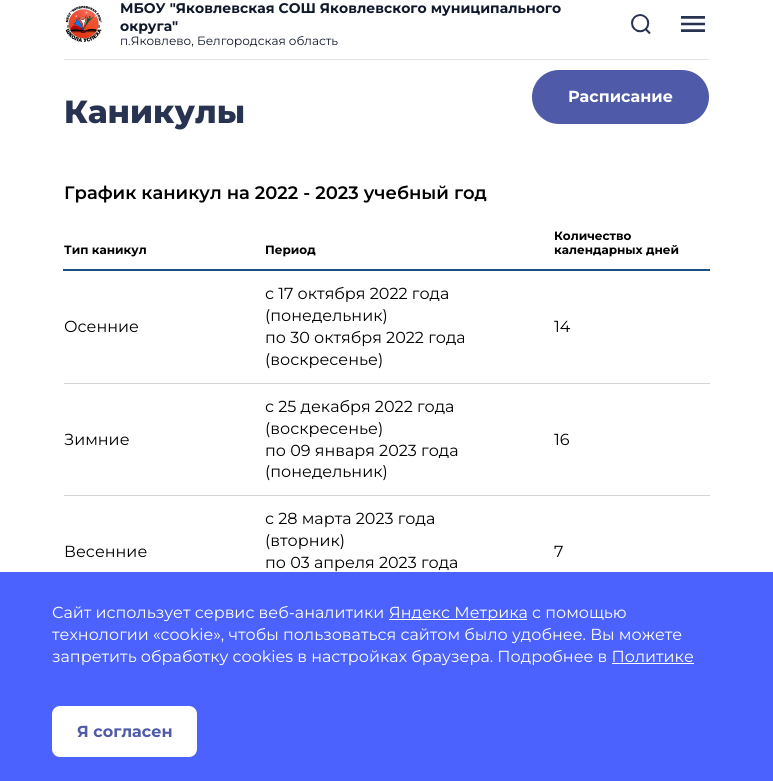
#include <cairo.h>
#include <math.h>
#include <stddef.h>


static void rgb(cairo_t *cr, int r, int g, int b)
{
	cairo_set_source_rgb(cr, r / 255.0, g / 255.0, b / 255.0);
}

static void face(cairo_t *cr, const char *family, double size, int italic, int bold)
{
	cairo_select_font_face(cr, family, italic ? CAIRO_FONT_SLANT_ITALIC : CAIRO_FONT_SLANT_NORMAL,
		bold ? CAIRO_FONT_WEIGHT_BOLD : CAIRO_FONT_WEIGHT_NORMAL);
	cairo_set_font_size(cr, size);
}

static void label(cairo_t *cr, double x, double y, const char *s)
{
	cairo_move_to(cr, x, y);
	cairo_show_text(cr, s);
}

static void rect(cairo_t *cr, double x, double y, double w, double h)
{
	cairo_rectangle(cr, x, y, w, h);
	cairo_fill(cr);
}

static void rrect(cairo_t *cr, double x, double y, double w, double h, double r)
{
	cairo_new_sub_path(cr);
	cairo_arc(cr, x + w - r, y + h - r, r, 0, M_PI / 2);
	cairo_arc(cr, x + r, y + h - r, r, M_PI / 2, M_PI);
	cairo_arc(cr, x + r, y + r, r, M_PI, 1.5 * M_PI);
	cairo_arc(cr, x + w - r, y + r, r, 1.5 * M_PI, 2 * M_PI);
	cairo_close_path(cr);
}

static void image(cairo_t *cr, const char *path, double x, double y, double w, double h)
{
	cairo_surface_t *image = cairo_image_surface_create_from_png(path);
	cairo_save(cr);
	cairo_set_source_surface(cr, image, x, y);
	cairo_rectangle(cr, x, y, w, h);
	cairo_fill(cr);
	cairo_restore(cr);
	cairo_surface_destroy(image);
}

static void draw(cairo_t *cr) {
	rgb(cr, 255, 255, 255);
	cairo_paint(cr);
	rgb(cr, 227, 227, 227);
	rect(cr, 64, 59, 645, 1);
	image(cr, "image0.png", 65, 5, 37, 38);
	face(cr, "Montserrat", 14, 0, 1);
	rgb(cr, 16, 24, 43);
	label(cr, 120, 13, "МБОУ \"Яковлевская СОШ Яковлевского муниципального");
	label(cr, 120, 31, "округа\"");
	face(cr, "Montserrat", 12, 0, 0);
	label(cr, 120, 45, "п.Яковлево, Белгородская область");
	image(cr, "image1.png", 631, 14, 20, 21);
	image(cr, "image2.png", 681, 16, 24, 16);
	rgb(cr, 79, 90, 168);
	rrect(cr, 532, 70, 177, 54, 27);
	cairo_fill(cr);
	face(cr, "Montserrat", 16, 0, 1);
	rgb(cr, 255, 255, 255);
	label(cr, 568, 102, "Расписание");
	face(cr, "Montserrat SemiBold", 18, 0, 0);
	rgb(cr, 0, 0, 0);
	label(cr, 64, 199, "График каникул на 2022 - 2023 учебный год");
	rgb(cr, 25, 81, 131);
	rect(cr, 63, 269, 647, 2);
	face(cr, "Montserrat", 12, 0, 1);
	rgb(cr, 0, 0, 0);
	label(cr, 64, 254, "Тип каникул");
	label(cr, 265, 254, "Период");
	label(cr, 554, 240, "Количество");
	label(cr, 554, 254, "календарных дней");
	rgb(cr, 211, 211, 211);
	rect(cr, 64, 383, 646, 1);
	face(cr, "Montserrat", 16, 0, 0);
	rgb(cr, 0, 0, 0);
	label(cr, 64, 332, "Осенние");
	label(cr, 265, 299, "с 17 октября 2022 года");
	label(cr, 265, 321, "(понедельник)");
	label(cr, 265, 343, "по 30 октября 2022 года");
	label(cr, 265, 365, "(воскресенье)");
	label(cr, 554, 332, "14");
	rgb(cr, 211, 211, 211);
	rect(cr, 64, 495, 646, 1);
	rgb(cr, 0, 0, 0);
	label(cr, 64, 445, "Зимние");
	label(cr, 265, 412, "с 25 декабря 2022 года");
	label(cr, 265, 434, "(воскресенье)");
	label(cr, 265, 456, "по 09 января 2023 года");
	label(cr, 265, 477, "(понедельник)");
	label(cr, 554, 445, "16");
	label(cr, 64, 557, "Весенние");
	label(cr, 265, 524, "с 28 марта 2023 года");
	label(cr, 265, 546, "(вторник)");
	label(cr, 265, 568, "по 03 апреля 2023 года");
	label(cr, 554, 557, "7");
	face(cr, "Montserrat ExtraBold", 32, 0, 0);
	rgb(cr, 39, 51, 80);
	label(cr, 64, 123, "Каникулы");
	rgb(cr, 75, 98, 255);
	rect(cr, 0, 572, 773, 209);
	face(cr, "Montserrat", 16, 0, 0);
	rgb(cr, 255, 255, 255);
	label(cr, 52, 618, "Сайт использует сервис веб-аналитики");
	rect(cr, 389, 619, 138, 1);
	label(cr, 389, 618, "Яндекс Метрика с помощью");
	label(cr, 52, 640, "технологии «cookie», чтобы пользоваться сайтом было удобнее. Вы можете");
	label(cr, 52, 662, "запретить обработку cookies в настройках браузера. Подробнее в Политике");
	rect(cr, 612, 663, 82, 1);
	rrect(cr, 52, 706, 145, 51, 8);
	cairo_fill(cr);
	face(cr, "Montserrat", 16, 0, 1);
	rgb(cr, 79, 90, 168);
	label(cr, 77, 737, "Я согласен");
}

int main(void) {
	cairo_surface_t *surface = cairo_image_surface_create(CAIRO_FORMAT_RGB24, 773, 781);
	cairo_t *cr = cairo_create(surface);
	cairo_font_options_t *options = cairo_font_options_create();
	cairo_font_options_set_hint_metrics(options, CAIRO_HINT_METRICS_OFF);
	cairo_font_options_set_hint_style(options, CAIRO_HINT_STYLE_NONE);
	cairo_set_font_options(cr, options);
	cairo_set_miter_limit(cr, 4);
	draw(cr);
	cairo_surface_write_to_png(surface, "render.png");
	cairo_font_options_destroy(options);
	cairo_destroy(cr);
	cairo_surface_destroy(surface);
	return 0;
}
